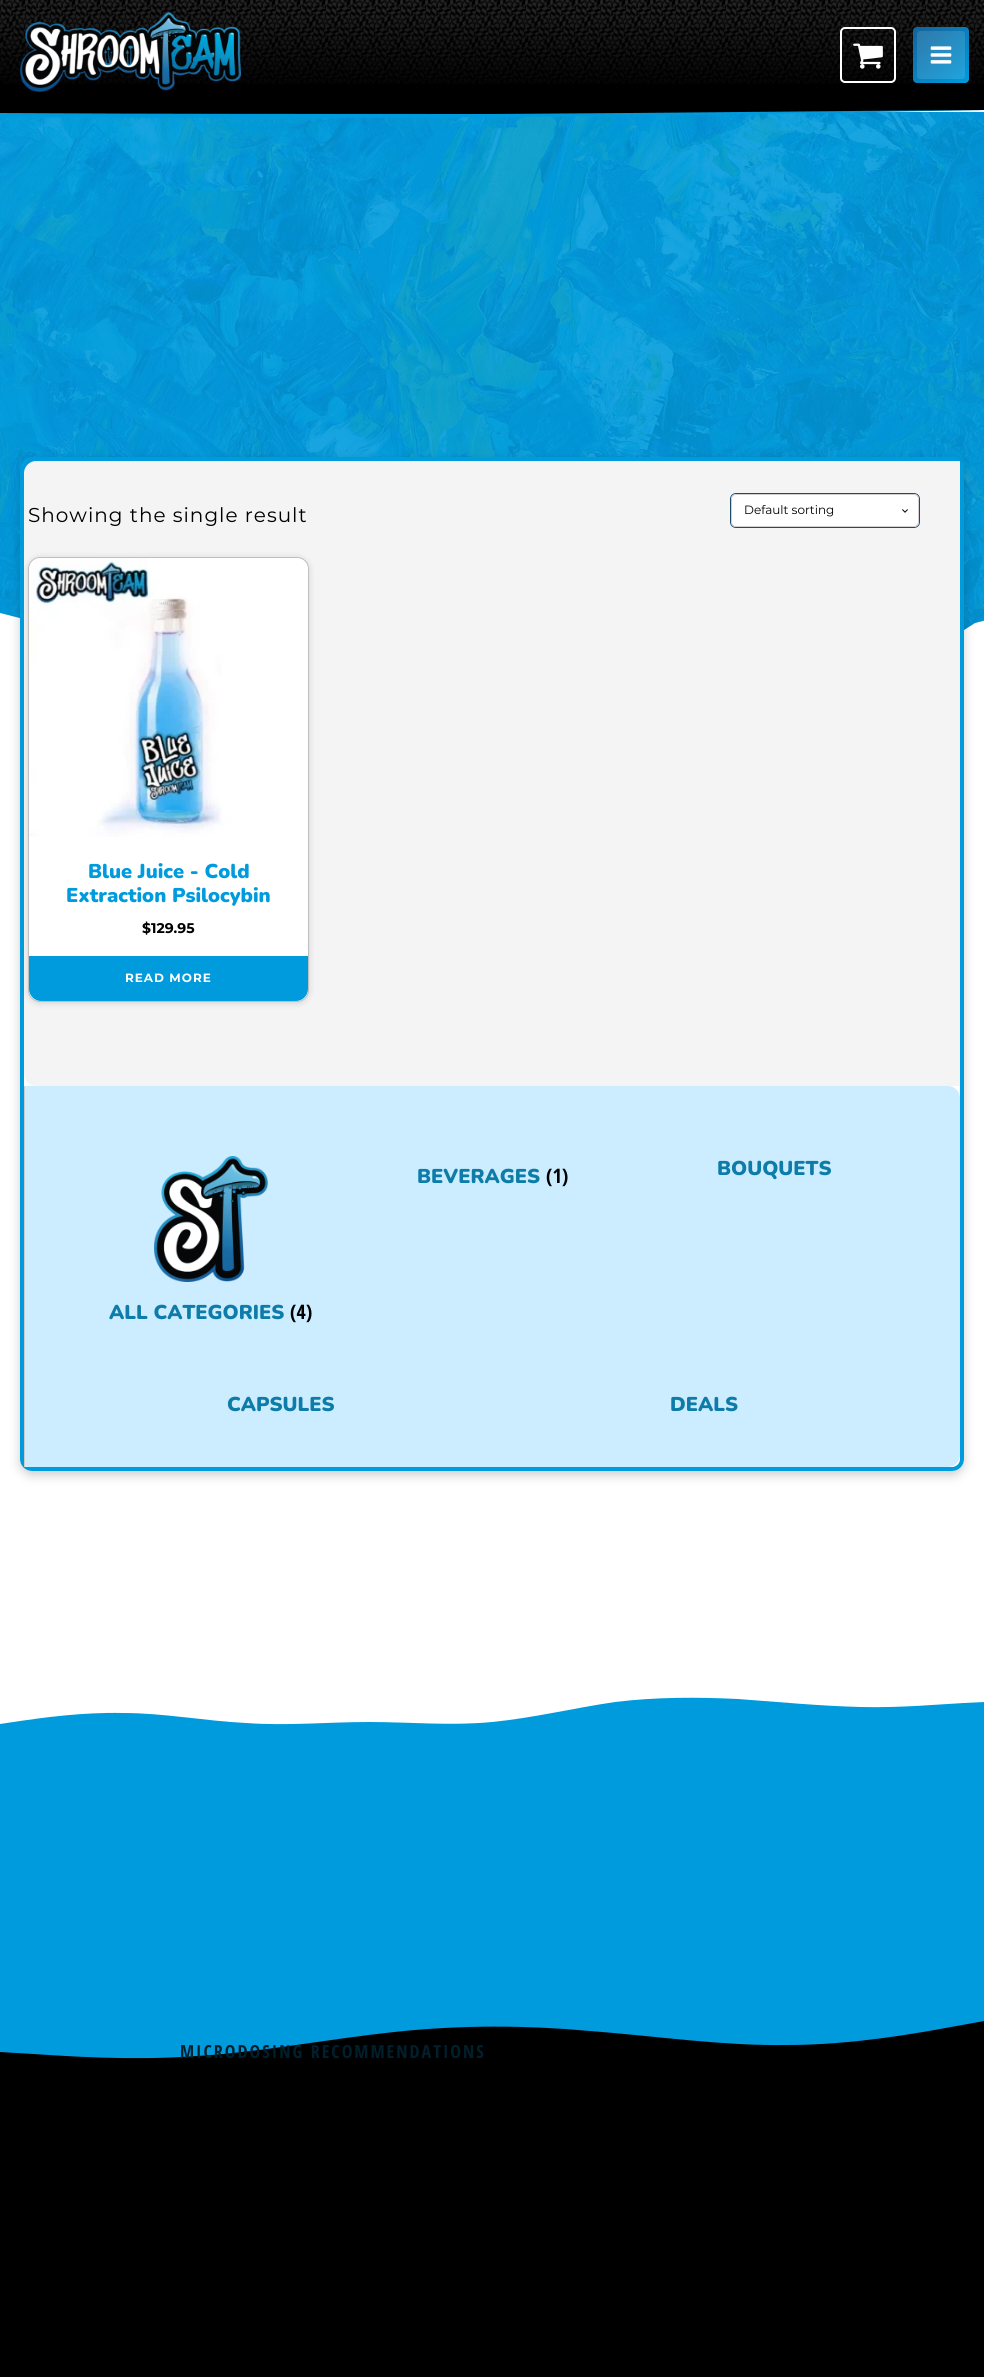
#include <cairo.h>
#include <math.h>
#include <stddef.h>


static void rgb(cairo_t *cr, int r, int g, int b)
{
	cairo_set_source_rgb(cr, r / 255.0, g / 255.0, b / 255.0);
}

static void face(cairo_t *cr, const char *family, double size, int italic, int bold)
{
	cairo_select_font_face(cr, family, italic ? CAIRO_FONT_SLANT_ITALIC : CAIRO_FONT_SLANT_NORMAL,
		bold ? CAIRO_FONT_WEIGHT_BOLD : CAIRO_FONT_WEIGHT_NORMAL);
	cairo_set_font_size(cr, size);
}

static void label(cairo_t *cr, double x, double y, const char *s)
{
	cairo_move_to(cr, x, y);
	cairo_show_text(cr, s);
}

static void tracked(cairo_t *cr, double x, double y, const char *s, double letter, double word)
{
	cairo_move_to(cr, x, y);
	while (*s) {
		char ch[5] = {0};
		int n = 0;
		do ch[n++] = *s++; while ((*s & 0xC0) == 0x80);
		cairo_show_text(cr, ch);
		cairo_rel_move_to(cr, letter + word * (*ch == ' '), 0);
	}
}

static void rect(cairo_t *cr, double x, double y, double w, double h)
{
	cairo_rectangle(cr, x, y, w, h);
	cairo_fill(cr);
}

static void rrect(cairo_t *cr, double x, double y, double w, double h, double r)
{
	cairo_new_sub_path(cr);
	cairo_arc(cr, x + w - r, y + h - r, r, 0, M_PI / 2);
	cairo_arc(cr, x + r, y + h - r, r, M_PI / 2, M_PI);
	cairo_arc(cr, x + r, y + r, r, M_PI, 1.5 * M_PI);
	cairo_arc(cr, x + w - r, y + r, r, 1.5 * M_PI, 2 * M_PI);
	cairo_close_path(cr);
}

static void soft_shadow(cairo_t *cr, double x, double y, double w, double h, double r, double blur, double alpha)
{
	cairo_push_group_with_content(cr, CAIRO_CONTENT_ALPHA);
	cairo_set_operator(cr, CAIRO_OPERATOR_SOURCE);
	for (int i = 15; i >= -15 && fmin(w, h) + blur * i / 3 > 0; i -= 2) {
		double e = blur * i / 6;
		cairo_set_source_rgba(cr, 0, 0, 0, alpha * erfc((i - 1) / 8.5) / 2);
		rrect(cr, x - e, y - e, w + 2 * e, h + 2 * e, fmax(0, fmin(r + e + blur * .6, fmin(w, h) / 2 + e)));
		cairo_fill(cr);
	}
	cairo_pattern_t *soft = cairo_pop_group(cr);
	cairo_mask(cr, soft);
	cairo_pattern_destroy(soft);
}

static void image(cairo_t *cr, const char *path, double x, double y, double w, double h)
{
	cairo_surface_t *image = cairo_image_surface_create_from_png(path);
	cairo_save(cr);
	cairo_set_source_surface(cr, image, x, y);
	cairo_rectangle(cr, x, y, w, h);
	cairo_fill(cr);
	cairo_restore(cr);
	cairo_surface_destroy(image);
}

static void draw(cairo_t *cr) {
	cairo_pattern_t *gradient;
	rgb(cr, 255, 255, 255);
	cairo_paint(cr);
	rgb(cr, 0, 0, 0);
	rect(cr, 0, 0, 984, 109);
	image(cr, "image0.png", 0, 0, 984, 84);
	image(cr, "image1.png", 20, 12, 221, 80);
	rrect(cr, 841, 28, 54, 54, 4);
	rgb(cr, 255, 255, 255);
	cairo_stroke(cr);
	image(cr, "image2.png", 853, 43, 30, 26);
	gradient = cairo_pattern_create_linear(916, 25, 966, 85);
	cairo_pattern_add_color_stop_rgba(gradient, 0, 0.078, 0.388, 0.608, 1);
	cairo_pattern_add_color_stop_rgba(gradient, 1, 0, 0.608, 0.867, 1);
	cairo_set_source(cr, gradient);
	cairo_pattern_destroy(gradient);
	rrect(cr, 913, 27, 56, 56, 4);
	cairo_fill(cr);
	cairo_set_source_rgba(cr, 1, 1, 1, 0.12);
	rrect(cr, 917, 31, 48, 48, 3);
	cairo_fill(cr);
	image(cr, "image3.png", 930, 46, 22, 18);
	image(cr, "image4.png", 0, 112, 984, 518);
	rgb(cr, 0, 155, 221);
	cairo_new_path(cr);
	cairo_move_to(cr, 0, 117);
	cairo_curve_to(cr, 164, 118, 328, 119, 492, 117);
	cairo_curve_to(cr, 656, 116, 820, 113, 984, 110);
	cairo_line_to(cr, 984, 109);
	cairo_line_to(cr, 0, 109);
	cairo_close_path(cr);
	cairo_fill(cr);
	rgb(cr, 0, 0, 0);
	cairo_new_path(cr);
	cairo_move_to(cr, 0, 113);
	cairo_curve_to(cr, 164, 114, 328, 114, 492, 114);
	cairo_curve_to(cr, 656, 113, 820, 111, 984, 110);
	cairo_line_to(cr, 984, 109);
	cairo_line_to(cr, 0, 109);
	cairo_close_path(cr);
	cairo_fill(cr);
	rgb(cr, 255, 255, 255);
	cairo_new_path(cr);
	cairo_move_to(cr, 0, 613);
	cairo_line_to(cr, 39, 623);
	cairo_line_to(cr, 78, 623);
	cairo_line_to(cr, 117, 618);
	cairo_line_to(cr, 156, 648);
	cairo_line_to(cr, 195, 643);
	cairo_line_to(cr, 273, 643);
	cairo_line_to(cr, 312, 648);
	cairo_line_to(cr, 351, 638);
	cairo_line_to(cr, 390, 623);
	cairo_line_to(cr, 429, 628);
	cairo_line_to(cr, 468, 653);
	cairo_line_to(cr, 507, 623);
	cairo_line_to(cr, 546, 628);
	cairo_line_to(cr, 585, 643);
	cairo_line_to(cr, 624, 648);
	cairo_line_to(cr, 663, 643);
	cairo_line_to(cr, 702, 653);
	cairo_line_to(cr, 741, 623);
	cairo_line_to(cr, 780, 633);
	cairo_line_to(cr, 819, 638);
	cairo_line_to(cr, 858, 628);
	cairo_line_to(cr, 897, 653);
	cairo_line_to(cr, 936, 648);
	cairo_line_to(cr, 975, 623);
	cairo_line_to(cr, 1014, 613);
	cairo_line_to(cr, 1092, 623);
	cairo_line_to(cr, 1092, 658);
	cairo_line_to(cr, 0, 658);
	cairo_close_path(cr);
	cairo_fill(cr);
	cairo_save(cr);
	cairo_set_fill_rule(cr, CAIRO_FILL_RULE_EVEN_ODD);
	cairo_new_path(cr);
	cairo_move_to(cr, 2, 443);
	cairo_line_to(cr, 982, 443);
	cairo_line_to(cr, 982, 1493);
	cairo_line_to(cr, 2, 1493);
	cairo_close_path(cr);
	cairo_move_to(cr, 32, 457);
	cairo_line_to(cr, 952, 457);
	cairo_curve_to(cr, 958.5, 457, 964, 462.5, 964, 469);
	cairo_line_to(cr, 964, 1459);
	cairo_curve_to(cr, 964, 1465.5, 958.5, 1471, 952, 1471);
	cairo_line_to(cr, 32, 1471);
	cairo_curve_to(cr, 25.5, 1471, 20, 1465.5, 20, 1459);
	cairo_line_to(cr, 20, 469);
	cairo_curve_to(cr, 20, 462.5, 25.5, 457, 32, 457);
	cairo_close_path(cr);
	cairo_clip(cr);
	rgb(cr, 0, 0, 0);
	soft_shadow(cr, 20, 461, 944, 1014, 12, 5.5, 0.2);
	cairo_restore(cr);
	rrect(cr, 22, 459, 940, 1010, 10);
	rgb(cr, 0, 155, 221);
	cairo_set_line_width(cr, 4);
	cairo_stroke(cr);
	rgb(cr, 244, 244, 244);
	cairo_new_path(cr);
	cairo_move_to(cr, 36, 461);
	cairo_line_to(cr, 960, 461);
	cairo_line_to(cr, 960, 1086);
	cairo_line_to(cr, 36, 1086);
	cairo_curve_to(cr, 29.5, 1086, 24, 1080.5, 24, 1074);
	cairo_line_to(cr, 24, 473);
	cairo_curve_to(cr, 24, 466.5, 29.5, 461, 36, 461);
	cairo_close_path(cr);
	cairo_fill(cr);
	face(cr, "Montserrat", 20, 0, 0);
	rgb(cr, 0, 0, 0);
	tracked(cr, 28, 522, "Showing the single result", 1, 0);
	rgb(cr, 255, 255, 255);
	rrect(cr, 730.5, 493.5, 189, 34, 5.5);
	cairo_fill_preserve(cr);
	rgb(cr, 29, 76, 109);
	cairo_set_line_width(cr, 1);
	cairo_stroke(cr);
	image(cr, "image5.png", 902, 509, 6, 4);
	rrect(cr, 731.5, 494.5, 187, 32, 4.5);
	rgb(cr, 211, 206, 210);
	cairo_stroke(cr);
	face(cr, "Montserrat", 12, 0, 0);
	rgb(cr, 0, 0, 0);
	label(cr, 744, 514, "Default sorting");
	rgb(cr, 0, 0, 0);
	soft_shadow(cr, 28, 558, 281, 445, 12, 3.5, 0.15);
	rgb(cr, 255, 255, 255);
	rrect(cr, 28, 557, 281, 445, 12);
	cairo_fill(cr);
	rrect(cr, 28.5, 557.5, 280, 444, 11.5);
	cairo_set_source_rgba(cr, 0, 0, 0, 0.25);
	cairo_stroke(cr);
	image(cr, "image6.png", 29, 558, 279, 279);
	face(cr, "Nunito Black", 20, 0, 0);
	rgb(cr, 0, 155, 221);
	label(cr, 88, 878, "Blue Juice - Cold");
	label(cr, 66, 902, "Extraction Psilocybin");
	face(cr, "Montserrat", 14, 0, 1);
	rgb(cr, 0, 0, 0);
	label(cr, 142, 933, "$129.95");
	cairo_save(cr);
	rrect(cr, 29, 558, 279, 443, 11);
	cairo_clip(cr);
	rgb(cr, 0, 155, 221);
	cairo_new_path(cr);
	cairo_move_to(cr, 29, 956);
	cairo_line_to(cr, 308, 956);
	cairo_line_to(cr, 308, 989);
	cairo_curve_to(cr, 308, 995.5, 302.5, 1001, 296, 1001);
	cairo_line_to(cr, 41, 1001);
	cairo_curve_to(cr, 34.5, 1001, 29, 995.5, 29, 989);
	cairo_close_path(cr);
	cairo_fill(cr);
	cairo_restore(cr);
	face(cr, "Montserrat", 12, 0, 1);
	rgb(cr, 255, 255, 255);
	tracked(cr, 125, 982, "READ MORE", 1, 0);
	rgb(cr, 204, 236, 255);
	cairo_new_path(cr);
	cairo_move_to(cr, 24, 1086);
	cairo_line_to(cr, 948, 1086);
	cairo_curve_to(cr, 954.5, 1086, 960, 1091.5, 960, 1098);
	cairo_line_to(cr, 960, 1455);
	cairo_curve_to(cr, 960, 1461.5, 954.5, 1467, 948, 1467);
	cairo_line_to(cr, 24, 1467);
	cairo_close_path(cr);
	cairo_fill(cr);
	rgb(cr, 204, 204, 204);
	rect(cr, 24, 1086, 1, 381);
	face(cr, "Nunito Black", 20, 0, 0);
	rgb(cr, 13, 124, 168);
	label(cr, 417, 1183, "BEVERAGES");
	face(cr, "Open Sans Condensed", 20, 0, 1);
	rgb(cr, 0, 0, 0);
	label(cr, 546, 1183, "(1)");
	face(cr, "Nunito Black", 20, 0, 0);
	rgb(cr, 13, 124, 168);
	label(cr, 717, 1175, "BOUQUETS");
	image(cr, "image7.png", 154, 1156, 115, 126);
	label(cr, 109, 1319, "ALL CATEGORIES");
	face(cr, "Open Sans Condensed", 20, 0, 1);
	rgb(cr, 0, 0, 0);
	label(cr, 290, 1319, "(4)");
	face(cr, "Nunito Black", 20, 0, 0);
	rgb(cr, 13, 124, 168);
	label(cr, 227, 1411, "CAPSULES");
	label(cr, 670, 1411, "DEALS");
	rgb(cr, 0, 155, 221);
	cairo_new_path(cr);
	cairo_move_to(cr, 984, 1702);
	cairo_line_to(cr, 964, 1703);
	cairo_curve_to(cr, 943, 1704, 902, 1708, 861, 1707);
	cairo_curve_to(cr, 820, 1706, 779, 1702, 738, 1699);
	cairo_curve_to(cr, 697, 1697, 656, 1697, 615, 1702);
	cairo_curve_to(cr, 574, 1708, 533, 1718, 492, 1722);
	cairo_curve_to(cr, 451, 1726, 410, 1722, 369, 1722);
	cairo_curve_to(cr, 328, 1722, 287, 1726, 246, 1723);
	cairo_curve_to(cr, 205, 1721, 164, 1713, 123, 1713);
	cairo_curve_to(cr, 82, 1712, 41, 1718, 20, 1721);
	cairo_line_to(cr, 0, 1724);
	cairo_line_to(cr, 0, 1733);
	cairo_line_to(cr, 984, 1733);
	cairo_close_path(cr);
	cairo_fill(cr);
	rect(cr, 0, 1733, 984, 326);
	rgb(cr, 0, 0, 0);
	cairo_new_path(cr);
	cairo_move_to(cr, 0, 2052);
	cairo_line_to(cr, 33, 2054);
	cairo_curve_to(cr, 66, 2056, 131, 2061, 197, 2056);
	cairo_curve_to(cr, 262, 2052, 328, 2039, 394, 2032);
	cairo_curve_to(cr, 459, 2025, 525, 2025, 590, 2031);
	cairo_curve_to(cr, 656, 2036, 722, 2046, 787, 2045);
	cairo_curve_to(cr, 853, 2045, 918, 2033, 951, 2027);
	cairo_line_to(cr, 984, 2021);
	cairo_line_to(cr, 984, 2065);
	cairo_line_to(cr, 0, 2065);
	cairo_close_path(cr);
	cairo_fill(cr);
	face(cr, "Open Sans Condensed", 18, 0, 1);
	rgb(cr, 0, 32, 46);
	tracked(cr, 180, 2058, "MICRODOSING RECOMMENDATIONS", 2, 0);
	rgb(cr, 0, 0, 0);
	rect(cr, 0, 2065, 984, 312);
}

int main(void) {
	cairo_surface_t *surface = cairo_image_surface_create(CAIRO_FORMAT_RGB24, 984, 2377);
	cairo_t *cr = cairo_create(surface);
	cairo_font_options_t *options = cairo_font_options_create();
	cairo_font_options_set_hint_metrics(options, CAIRO_HINT_METRICS_OFF);
	cairo_font_options_set_hint_style(options, CAIRO_HINT_STYLE_NONE);
	cairo_set_font_options(cr, options);
	cairo_set_miter_limit(cr, 4);
	draw(cr);
	cairo_surface_write_to_png(surface, "render.png");
	cairo_font_options_destroy(options);
	cairo_destroy(cr);
	cairo_surface_destroy(surface);
	return 0;
}
